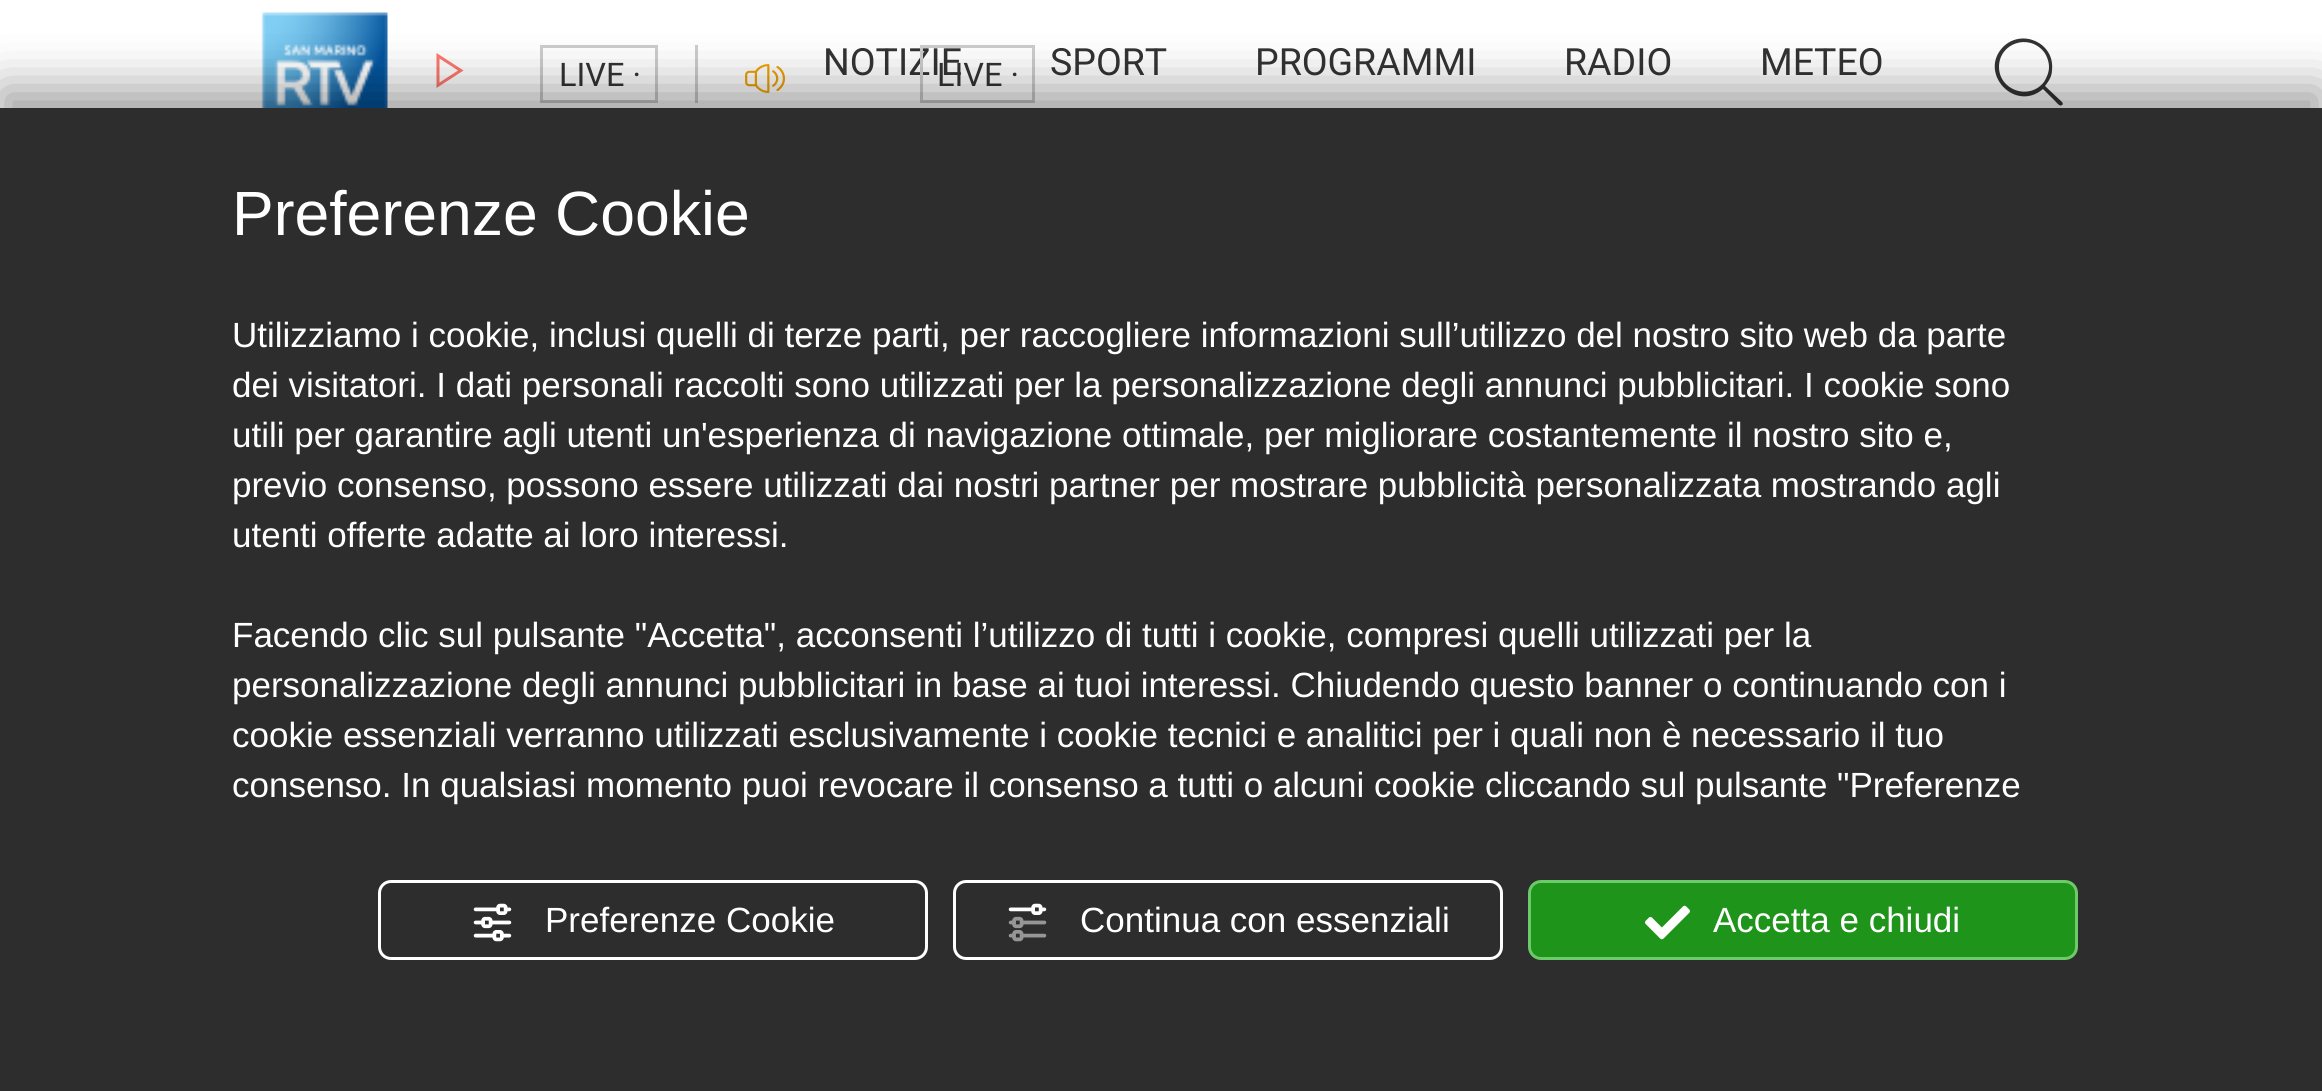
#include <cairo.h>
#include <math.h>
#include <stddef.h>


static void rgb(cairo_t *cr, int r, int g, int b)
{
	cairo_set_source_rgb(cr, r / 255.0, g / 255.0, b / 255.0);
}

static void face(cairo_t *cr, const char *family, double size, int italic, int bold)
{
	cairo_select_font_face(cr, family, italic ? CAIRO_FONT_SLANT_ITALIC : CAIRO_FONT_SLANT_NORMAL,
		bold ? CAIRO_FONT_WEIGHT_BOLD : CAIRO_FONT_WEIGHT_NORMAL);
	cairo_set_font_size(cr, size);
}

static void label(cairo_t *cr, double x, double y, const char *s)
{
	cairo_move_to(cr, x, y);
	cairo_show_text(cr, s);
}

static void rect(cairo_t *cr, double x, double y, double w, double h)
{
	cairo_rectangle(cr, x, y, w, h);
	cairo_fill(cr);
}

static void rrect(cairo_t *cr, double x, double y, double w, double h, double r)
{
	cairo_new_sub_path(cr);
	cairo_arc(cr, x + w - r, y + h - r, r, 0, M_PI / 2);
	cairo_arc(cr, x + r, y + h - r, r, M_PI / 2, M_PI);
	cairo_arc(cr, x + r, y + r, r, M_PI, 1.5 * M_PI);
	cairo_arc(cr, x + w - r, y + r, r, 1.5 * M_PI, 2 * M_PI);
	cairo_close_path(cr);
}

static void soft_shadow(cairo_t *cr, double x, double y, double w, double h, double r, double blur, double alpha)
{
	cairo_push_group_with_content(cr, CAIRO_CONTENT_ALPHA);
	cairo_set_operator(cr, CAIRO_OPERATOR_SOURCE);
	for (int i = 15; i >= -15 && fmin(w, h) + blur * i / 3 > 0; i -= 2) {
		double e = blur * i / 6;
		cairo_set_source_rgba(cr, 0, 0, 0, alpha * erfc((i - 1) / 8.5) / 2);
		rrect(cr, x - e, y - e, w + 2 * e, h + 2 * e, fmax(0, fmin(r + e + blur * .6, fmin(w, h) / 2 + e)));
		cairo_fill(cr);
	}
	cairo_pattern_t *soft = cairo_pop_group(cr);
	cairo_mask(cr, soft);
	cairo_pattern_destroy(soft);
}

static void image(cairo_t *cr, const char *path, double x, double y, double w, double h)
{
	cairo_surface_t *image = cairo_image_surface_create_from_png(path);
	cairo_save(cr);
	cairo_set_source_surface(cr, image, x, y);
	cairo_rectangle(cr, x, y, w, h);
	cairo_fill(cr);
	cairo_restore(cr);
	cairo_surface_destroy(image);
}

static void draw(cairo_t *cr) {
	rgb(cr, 255, 255, 255);
	cairo_paint(cr);
	image(cr, "image0.png", 261, 12, 127, 96);
	rgb(cr, 204, 204, 204);
	rect(cr, 695, 45, 3, 58);
	rgb(cr, 255, 120, 109);
	cairo_new_path(cr);
	cairo_move_to(cr, 439.5, 58.5);
	cairo_line_to(cr, 458, 70.5);
	cairo_line_to(cr, 439.5, 82.5);
	cairo_close_path(cr);
	cairo_move_to(cr, 436.5, 53);
	cairo_line_to(cr, 436.5, 88);
	cairo_line_to(cr, 463.5, 70.5);
	cairo_close_path(cr);
	cairo_fill(cr);
	cairo_rectangle(cr, 541.5, 46.5, 115, 55);
	rgb(cr, 204, 204, 204);
	cairo_set_line_width(cr, 3);
	cairo_stroke(cr);
	face(cr, "Roboto", 32.5, 0, 0);
	rgb(cr, 51, 51, 51);
	label(cr, 559, 86, "LIVE ·");
	image(cr, "image1.png", 745, 64, 41, 29);
	face(cr, "Roboto", 37.5, 0, 0);
	label(cr, 823, 75, "NOTIZIE");
	cairo_rectangle(cr, 921.5, 46.5, 112, 55);
	rgb(cr, 204, 204, 204);
	cairo_stroke(cr);
	face(cr, "Roboto", 32.5, 0, 0);
	rgb(cr, 51, 51, 51);
	label(cr, 937, 86, "LIVE ·");
	face(cr, "Roboto", 37.5, 0, 0);
	label(cr, 1050, 75, "SPORT");
	label(cr, 1255, 75, "PROGRAMMI");
	label(cr, 1564, 75, "RADIO");
	label(cr, 1760, 75, "METEO");
	cairo_new_path(cr);
	cairo_move_to(cr, 2062, 102);
	cairo_line_to(cr, 2045, 86);
	cairo_curve_to(cr, 2049, 81, 2052, 76, 2052, 70);
	cairo_curve_to(cr, 2055, 43, 2022, 28, 2003, 47);
	cairo_curve_to(cr, 1978, 73, 2015, 113, 2043, 89);
	cairo_line_to(cr, 2056, 102);
	cairo_curve_to(cr, 2057, 103, 2060, 107, 2062, 105);
	cairo_curve_to(cr, 2063, 105, 2063, 103, 2062, 102);
	cairo_close_path(cr);
	cairo_move_to(cr, 1999, 67);
	cairo_curve_to(cr, 1999, 43, 2029, 33, 2044, 52);
	cairo_curve_to(cr, 2047, 56, 2049, 62, 2049, 67);
	cairo_curve_to(cr, 2049, 72, 2047, 77, 2044, 82);
	cairo_curve_to(cr, 2029, 101, 1999, 90, 1999, 67);
	cairo_close_path(cr);
	cairo_fill(cr);
	rgb(cr, 0, 0, 0);
	soft_shadow(cr, 0, 88, 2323, 985, 0, 25, 0.38);
	rgb(cr, 45, 45, 45);
	rect(cr, 0, 108, 2322, 983);
	face(cr, "Liberation Sans", 62.5, 0, 0);
	rgb(cr, 255, 255, 255);
	label(cr, 232, 235, "Preferenze Cookie");
	face(cr, "Liberation Sans", 35, 0, 0);
	label(cr, 232, 347, "Utilizziamo i cookie, inclusi quelli di terze parti, per raccogliere informazioni sull’utilizzo del nostro sito web da parte");
	label(cr, 232, 397, "dei visitatori. I dati personali raccolti sono utilizzati per la personalizzazione degli annunci pubblicitari. I cookie sono");
	label(cr, 232, 447, "utili per garantire agli utenti un'esperienza di navigazione ottimale, per migliorare costantemente il nostro sito e,");
	label(cr, 232, 497, "previo consenso, possono essere utilizzati dai nostri partner per mostrare pubblicità personalizzata mostrando agli");
	label(cr, 232, 547, "utenti offerte adatte ai loro interessi.");
	label(cr, 232, 647, "Facendo clic sul pulsante \"Accetta\", acconsenti l’utilizzo di tutti i cookie, compresi quelli utilizzati per la");
	label(cr, 232, 697, "personalizzazione degli annunci pubblicitari in base ai tuoi interessi. Chiudendo questo banner o continuando con i");
	label(cr, 232, 747, "cookie essenziali verranno utilizzati esclusivamente i cookie tecnici e analitici per i quali non è necessario il tuo");
	label(cr, 232, 797, "consenso. In qualsiasi momento puoi revocare il consenso a tutti o alcuni cookie cliccando sul pulsante \"Preferenze");
	rrect(cr, 379.5, 881.5, 547, 77, 11.5);
	cairo_stroke(cr);
	image(cr, "image2.png", 473, 903, 39, 39);
	label(cr, 545, 932, "Preferenze Cookie");
	rrect(cr, 954.5, 881.5, 547, 77, 11.5);
	cairo_stroke(cr);
	image(cr, "image3.png", 1008, 903, 39, 39);
	label(cr, 1080, 932, "Continua con essenziali");
	rgb(cr, 30, 148, 26);
	rrect(cr, 1529.5, 881.5, 547, 77, 11.5);
	cairo_fill_preserve(cr);
	rgb(cr, 108, 202, 105);
	cairo_stroke(cr);
	image(cr, "image4.png", 1645, 905, 45, 35);
	rgb(cr, 255, 255, 255);
	label(cr, 1713, 932, "Accetta e chiudi");
}

int main(void) {
	cairo_surface_t *surface = cairo_image_surface_create(CAIRO_FORMAT_RGB24, 2322, 1091);
	cairo_t *cr = cairo_create(surface);
	cairo_font_options_t *options = cairo_font_options_create();
	cairo_font_options_set_hint_metrics(options, CAIRO_HINT_METRICS_OFF);
	cairo_font_options_set_hint_style(options, CAIRO_HINT_STYLE_NONE);
	cairo_set_font_options(cr, options);
	cairo_set_miter_limit(cr, 4);
	draw(cr);
	cairo_surface_write_to_png(surface, "render.png");
	cairo_font_options_destroy(options);
	cairo_destroy(cr);
	cairo_surface_destroy(surface);
	return 0;
}
